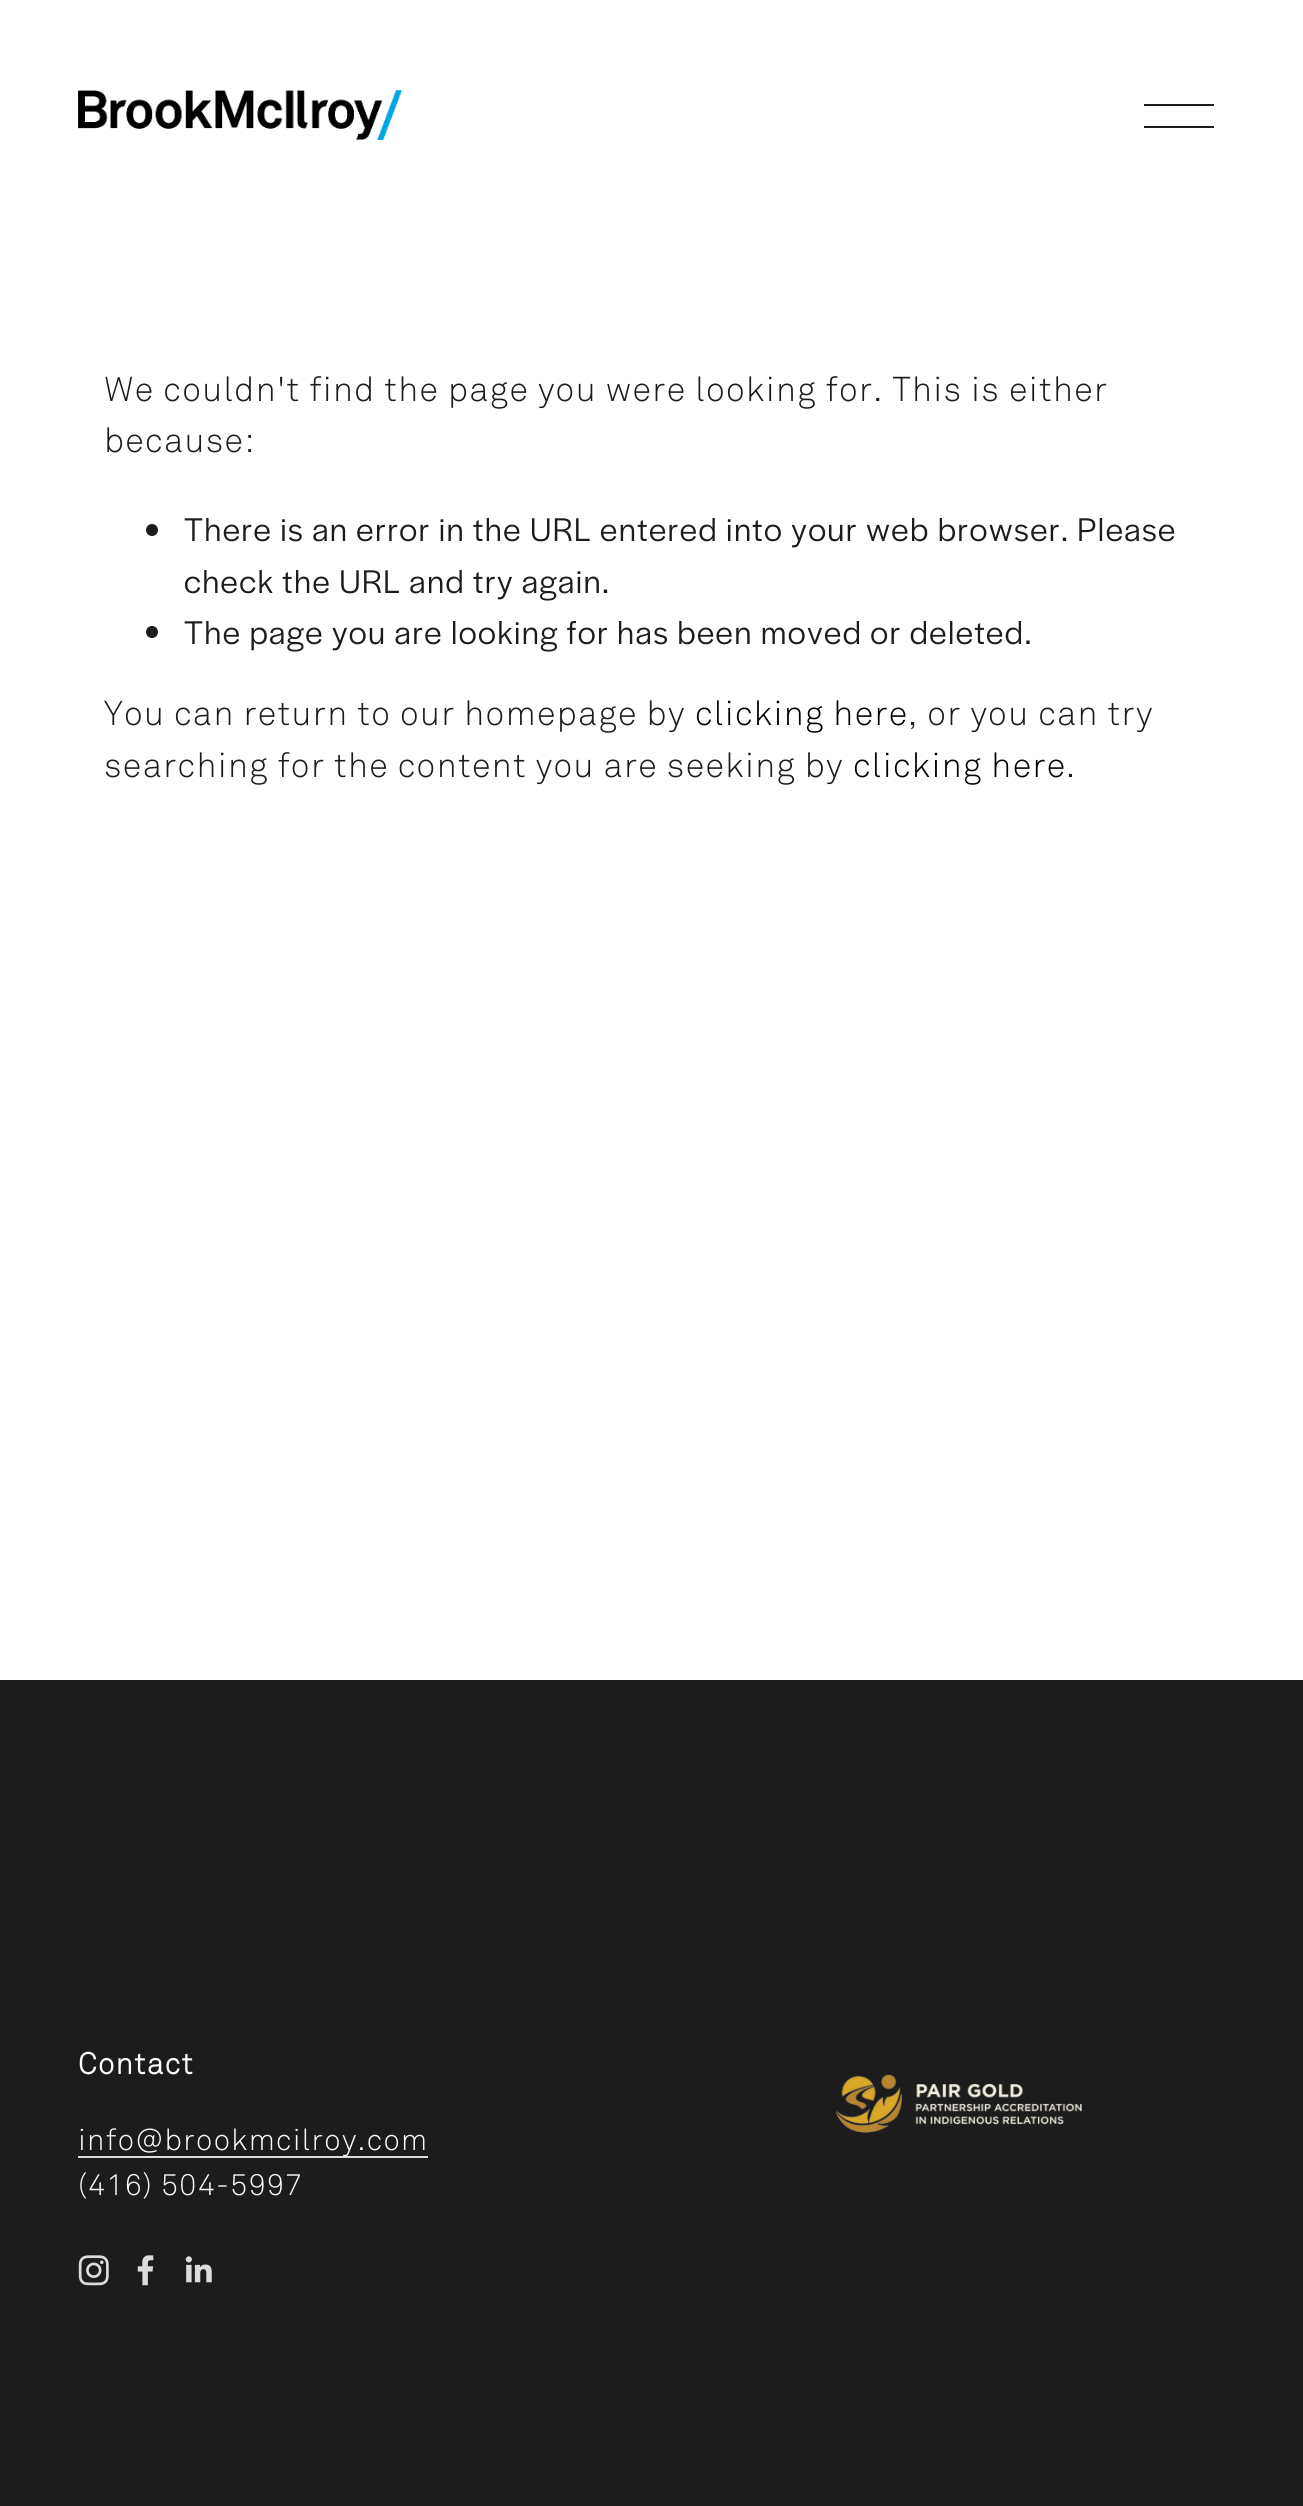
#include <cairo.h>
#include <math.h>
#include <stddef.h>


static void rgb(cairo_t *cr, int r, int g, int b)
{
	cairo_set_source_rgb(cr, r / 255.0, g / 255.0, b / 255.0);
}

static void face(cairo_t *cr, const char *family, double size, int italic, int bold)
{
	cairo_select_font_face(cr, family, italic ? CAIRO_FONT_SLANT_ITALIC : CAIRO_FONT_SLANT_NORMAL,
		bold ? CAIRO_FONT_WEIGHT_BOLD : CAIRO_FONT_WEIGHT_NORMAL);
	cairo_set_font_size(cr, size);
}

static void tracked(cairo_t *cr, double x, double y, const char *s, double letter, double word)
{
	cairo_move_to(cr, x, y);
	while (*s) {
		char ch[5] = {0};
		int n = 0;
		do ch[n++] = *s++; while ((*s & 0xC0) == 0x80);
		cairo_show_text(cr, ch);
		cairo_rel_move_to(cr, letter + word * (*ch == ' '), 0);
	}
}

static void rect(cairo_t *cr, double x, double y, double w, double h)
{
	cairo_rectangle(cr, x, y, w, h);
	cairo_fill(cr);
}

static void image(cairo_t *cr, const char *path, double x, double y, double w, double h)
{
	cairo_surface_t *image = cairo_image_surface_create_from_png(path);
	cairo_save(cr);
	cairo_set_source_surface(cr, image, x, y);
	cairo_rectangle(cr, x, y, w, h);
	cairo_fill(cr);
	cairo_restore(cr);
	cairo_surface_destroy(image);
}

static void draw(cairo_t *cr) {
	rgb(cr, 255, 255, 255);
	cairo_paint(cr);
	image(cr, "image0.png", 78, 90, 324, 50);
	rgb(cr, 28, 28, 28);
	rect(cr, 1144, 104, 70, 2);
	rect(cr, 1144, 126, 70, 2);
	face(cr, "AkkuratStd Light", 34.15, 0, 0);
	tracked(cr, 104, 401, "We couldn't find the page you were looking for. This is either", 1.37, 0);
	tracked(cr, 104, 452, "because:", 1.37, 0);
	cairo_new_path(cr);
	cairo_arc(cr, 152, 530, 6, 0, 2 * M_PI);
	cairo_fill(cr);
	face(cr, "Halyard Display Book", 34.15, 0, 0);
	tracked(cr, 184, 541, "There is an error in the URL entered into your web browser. Please", 1.37, 0);
	tracked(cr, 184, 593, "check the URL and try again.", 1.37, 0);
	cairo_new_path(cr);
	cairo_arc(cr, 152, 632, 6, 0, 2 * M_PI);
	cairo_fill(cr);
	tracked(cr, 184, 644, "The page you are looking for has been moved or deleted.", 1.37, 0);
	face(cr, "AkkuratStd Light", 34.15, 0, 0);
	tracked(cr, 104, 725, "You can return to our homepage by", 1.37, 0);
	rgb(cr, 0, 0, 0);
	tracked(cr, 695, 725, "clicking here", 1.37, 0);
	rgb(cr, 28, 28, 28);
	tracked(cr, 908, 725, ", or you can try", 1.37, 0);
	tracked(cr, 104, 777, "searching for the content you are seeking by", 1.37, 0);
	rgb(cr, 0, 0, 0);
	tracked(cr, 853, 777, "clicking here", 1.37, 0);
	rgb(cr, 28, 28, 28);
	tracked(cr, 1066, 777, ".", 1.37, 0);
	rect(cr, 0, 1680, 1303, 826);
	face(cr, "AkkuratStd", 29.8, 0, 1);
	rgb(cr, 250, 250, 250);
	tracked(cr, 78, 2074, "Contact", 1.37, 0);
	rgb(cr, 220, 220, 220);
	rect(cr, 78, 2156, 350, 2);
	face(cr, "AkkuratStd Light", 29.8, 0, 0);
	rgb(cr, 250, 250, 250);
	tracked(cr, 78, 2150, "info@brookmcilroy.com", 1.37, 0);
	tracked(cr, 78, 2195, "(416) 504-5997", 1.37, 0);
	image(cr, "image1.png", 835, 2074, 247, 59);
	image(cr, "image2.png", 78, 2255, 31, 31);
	image(cr, "image3.png", 137, 2255, 17, 31);
	image(cr, "image4.png", 185, 2256, 27, 27);
}

int main(void) {
	cairo_surface_t *surface = cairo_image_surface_create(CAIRO_FORMAT_RGB24, 1303, 2506);
	cairo_t *cr = cairo_create(surface);
	cairo_font_options_t *options = cairo_font_options_create();
	cairo_font_options_set_hint_metrics(options, CAIRO_HINT_METRICS_OFF);
	cairo_font_options_set_hint_style(options, CAIRO_HINT_STYLE_NONE);
	cairo_set_font_options(cr, options);
	cairo_set_miter_limit(cr, 4);
	draw(cr);
	cairo_surface_write_to_png(surface, "render.png");
	cairo_font_options_destroy(options);
	cairo_destroy(cr);
	cairo_surface_destroy(surface);
	return 0;
}
